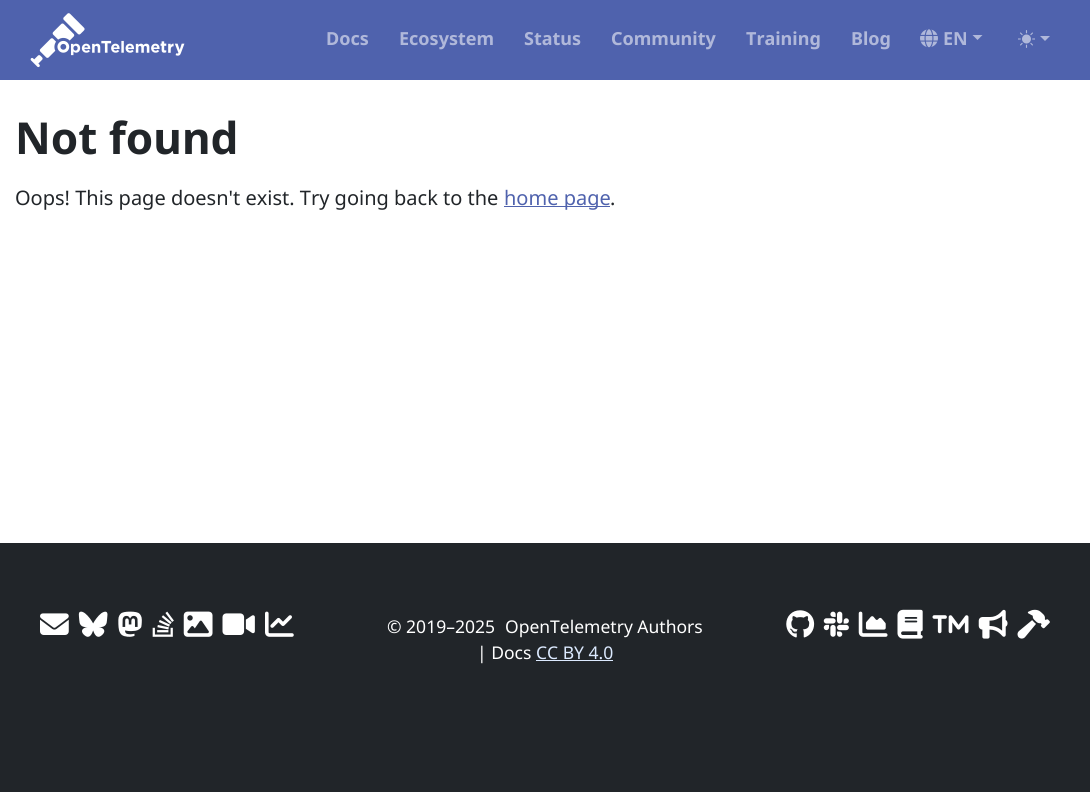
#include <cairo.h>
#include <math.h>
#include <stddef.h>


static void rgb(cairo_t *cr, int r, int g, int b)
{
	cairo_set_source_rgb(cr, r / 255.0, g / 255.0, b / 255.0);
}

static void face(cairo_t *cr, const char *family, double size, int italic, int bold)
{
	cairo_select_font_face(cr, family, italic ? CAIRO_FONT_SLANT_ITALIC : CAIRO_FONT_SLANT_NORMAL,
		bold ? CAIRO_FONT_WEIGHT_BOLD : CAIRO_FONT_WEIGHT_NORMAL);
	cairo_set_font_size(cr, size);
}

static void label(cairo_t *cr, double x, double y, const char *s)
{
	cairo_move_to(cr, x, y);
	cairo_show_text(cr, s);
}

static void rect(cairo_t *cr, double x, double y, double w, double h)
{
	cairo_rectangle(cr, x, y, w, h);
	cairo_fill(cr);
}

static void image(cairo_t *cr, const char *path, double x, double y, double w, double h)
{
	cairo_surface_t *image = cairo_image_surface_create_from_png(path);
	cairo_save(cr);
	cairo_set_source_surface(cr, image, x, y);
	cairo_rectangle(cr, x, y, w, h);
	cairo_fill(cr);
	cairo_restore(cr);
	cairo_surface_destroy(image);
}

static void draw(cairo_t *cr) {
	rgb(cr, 255, 255, 255);
	cairo_paint(cr);
	rgb(cr, 79, 98, 173);
	rect(cr, 0, 0, 1090, 80);
	image(cr, "image0.png", 30, 13, 155, 55);
	face(cr, "Noto Sans", 18, 0, 1);
	rgb(cr, 176, 184, 218);
	label(cr, 326, 45, "Docs");
	label(cr, 399, 45, "Ecosystem");
	label(cr, 524, 45, "Status");
	label(cr, 611, 45, "Community");
	label(cr, 746, 45, "Training");
	label(cr, 851, 45, "Blog");
	image(cr, "image1.png", 920, 29, 18, 19);
	label(cr, 943, 45, "EN");
	cairo_new_path(cr);
	cairo_move_to(cr, 972.5, 35);
	cairo_line_to(cr, 982.5, 35);
	cairo_line_to(cr, 977.5, 40);
	cairo_close_path(cr);
	cairo_fill(cr);
	image(cr, "image2.png", 1018, 30, 17, 18);
	cairo_new_path(cr);
	cairo_move_to(cr, 1040, 36);
	cairo_line_to(cr, 1050, 36);
	cairo_line_to(cr, 1045, 41);
	cairo_close_path(cr);
	cairo_fill(cr);
	face(cr, "Noto Sans", 44, 0, 1);
	rgb(cr, 33, 37, 41);
	label(cr, 15, 154, "Not found");
	face(cr, "Noto Sans", 20, 0, 0);
	label(cr, 15, 205, "Oops! This page doesn't exist. Try going back to the");
	rgb(cr, 79, 98, 173);
	rect(cr, 504, 206, 106, 1);
	label(cr, 504, 205, "home page");
	rgb(cr, 33, 37, 41);
	label(cr, 610, 205, ".");
	rect(cr, 0, 543, 1090, 249);
	image(cr, "image3.png", 40, 613, 29, 22);
	image(cr, "image4.png", 78, 611, 30, 26);
	image(cr, "image5.png", 118, 611, 24, 26);
	image(cr, "image6.png", 152, 611, 22, 26);
	image(cr, "image7.png", 183, 611, 30, 26);
	image(cr, "image8.png", 222, 613, 33, 22);
	image(cr, "image9.png", 265, 611, 29, 26);
	face(cr, "Noto Sans", 17.5, 0, 0);
	rgb(cr, 255, 255, 255);
	label(cr, 387, 633, "© 2019–2025");
	label(cr, 505, 633, "OpenTelemetry Authors");
	label(cr, 477, 659, "| Docs");
	rgb(cr, 220, 234, 255);
	label(cr, 536, 659, "CC BY 4.0");
	rect(cr, 536, 660, 77, 1);
	image(cr, "image10.png", 786, 610, 29, 28);
	image(cr, "image11.png", 823, 611, 26, 26);
	image(cr, "image12.png", 858, 611, 30, 26);
	image(cr, "image13.png", 897, 609, 26, 30);
	image(cr, "image14.png", 932, 615, 37, 19);
	image(cr, "image15.png", 978, 609, 30, 30);
	image(cr, "image16.png", 1017, 609, 33, 30);
}

int main(void) {
	cairo_surface_t *surface = cairo_image_surface_create(CAIRO_FORMAT_RGB24, 1090, 792);
	cairo_t *cr = cairo_create(surface);
	cairo_font_options_t *options = cairo_font_options_create();
	cairo_font_options_set_hint_metrics(options, CAIRO_HINT_METRICS_OFF);
	cairo_font_options_set_hint_style(options, CAIRO_HINT_STYLE_NONE);
	cairo_set_font_options(cr, options);
	cairo_set_miter_limit(cr, 4);
	draw(cr);
	cairo_surface_write_to_png(surface, "render.png");
	cairo_font_options_destroy(options);
	cairo_destroy(cr);
	cairo_surface_destroy(surface);
	return 0;
}
